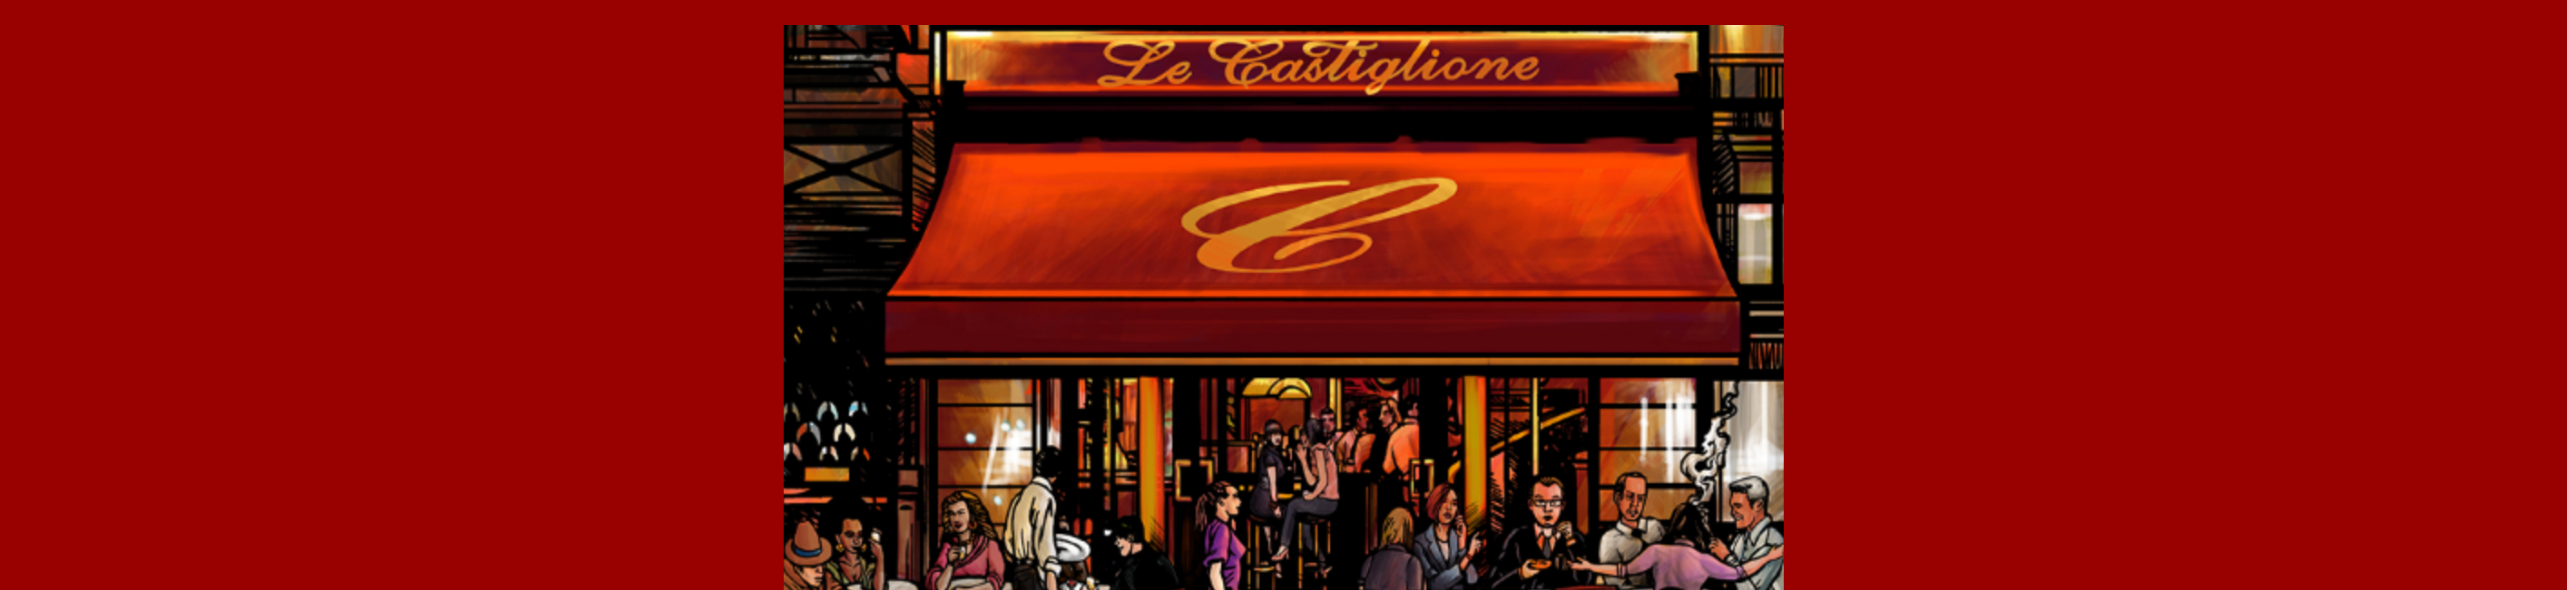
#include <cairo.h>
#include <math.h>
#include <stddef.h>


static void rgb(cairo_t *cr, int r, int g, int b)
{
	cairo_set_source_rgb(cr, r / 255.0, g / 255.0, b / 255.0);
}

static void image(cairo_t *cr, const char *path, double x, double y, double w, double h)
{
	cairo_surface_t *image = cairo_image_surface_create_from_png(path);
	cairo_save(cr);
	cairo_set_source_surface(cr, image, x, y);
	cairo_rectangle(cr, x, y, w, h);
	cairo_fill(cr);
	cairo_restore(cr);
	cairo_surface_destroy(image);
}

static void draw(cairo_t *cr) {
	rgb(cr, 153, 0, 0);
	cairo_paint(cr);
	image(cr, "image0.png", 783, 25, 1001, 565);
}

int main(void) {
	cairo_surface_t *surface = cairo_image_surface_create(CAIRO_FORMAT_RGB24, 2567, 590);
	cairo_t *cr = cairo_create(surface);
	cairo_font_options_t *options = cairo_font_options_create();
	cairo_font_options_set_hint_metrics(options, CAIRO_HINT_METRICS_OFF);
	cairo_font_options_set_hint_style(options, CAIRO_HINT_STYLE_NONE);
	cairo_set_font_options(cr, options);
	cairo_set_miter_limit(cr, 4);
	draw(cr);
	cairo_surface_write_to_png(surface, "render.png");
	cairo_font_options_destroy(options);
	cairo_destroy(cr);
	cairo_surface_destroy(surface);
	return 0;
}
